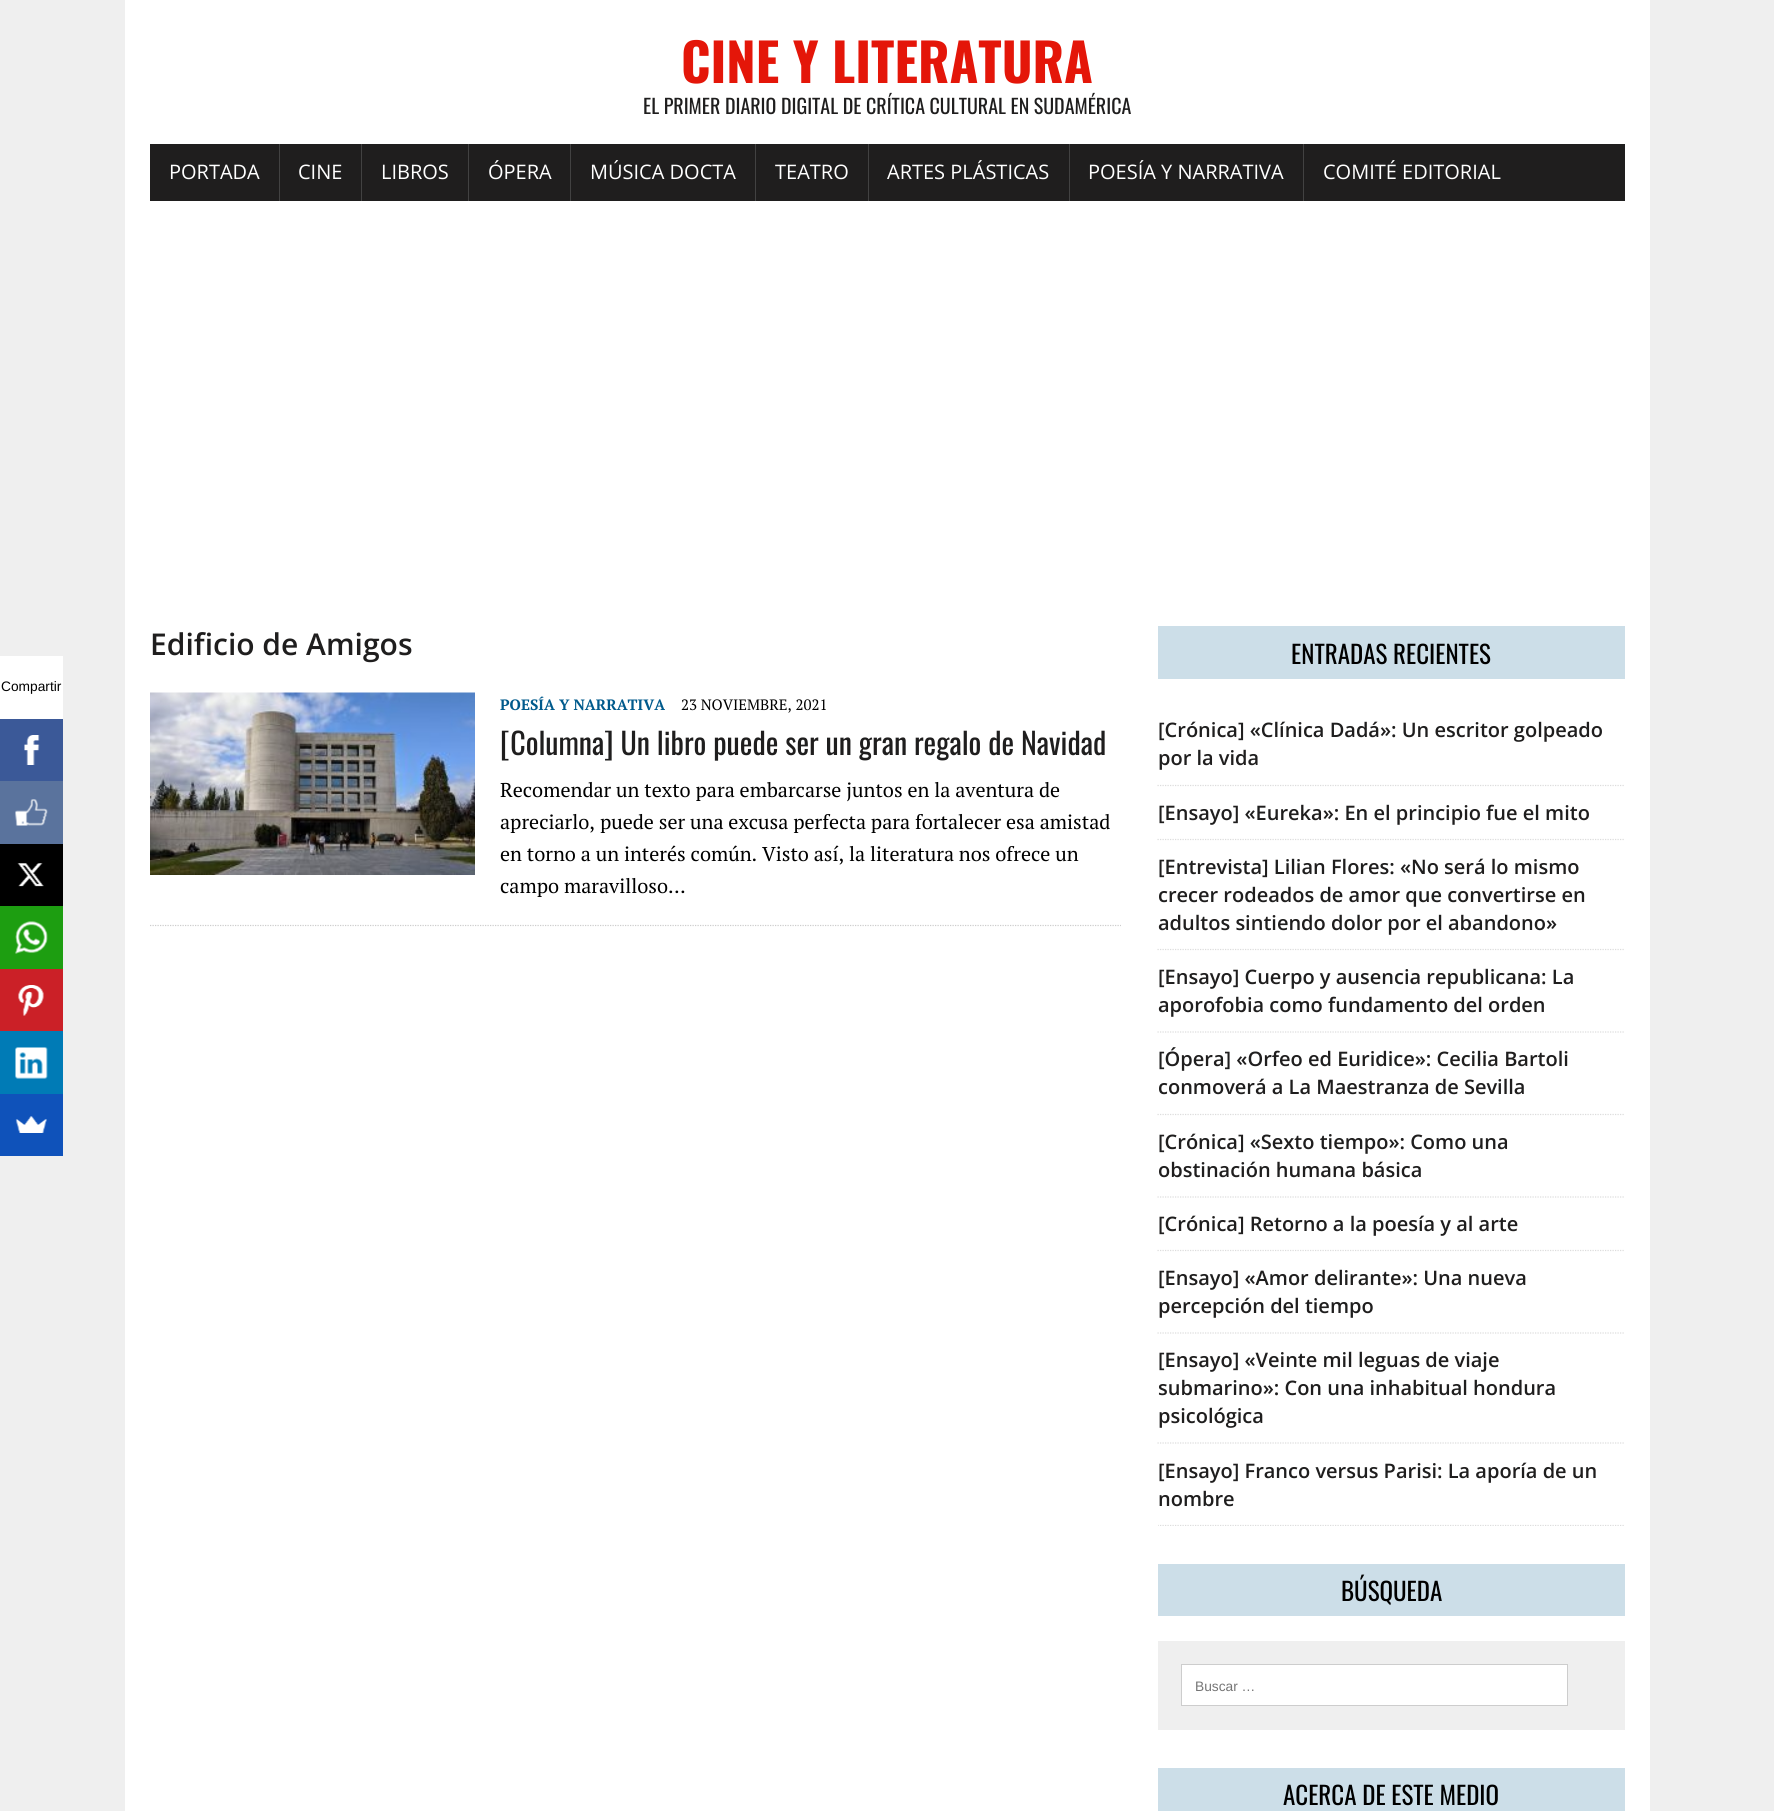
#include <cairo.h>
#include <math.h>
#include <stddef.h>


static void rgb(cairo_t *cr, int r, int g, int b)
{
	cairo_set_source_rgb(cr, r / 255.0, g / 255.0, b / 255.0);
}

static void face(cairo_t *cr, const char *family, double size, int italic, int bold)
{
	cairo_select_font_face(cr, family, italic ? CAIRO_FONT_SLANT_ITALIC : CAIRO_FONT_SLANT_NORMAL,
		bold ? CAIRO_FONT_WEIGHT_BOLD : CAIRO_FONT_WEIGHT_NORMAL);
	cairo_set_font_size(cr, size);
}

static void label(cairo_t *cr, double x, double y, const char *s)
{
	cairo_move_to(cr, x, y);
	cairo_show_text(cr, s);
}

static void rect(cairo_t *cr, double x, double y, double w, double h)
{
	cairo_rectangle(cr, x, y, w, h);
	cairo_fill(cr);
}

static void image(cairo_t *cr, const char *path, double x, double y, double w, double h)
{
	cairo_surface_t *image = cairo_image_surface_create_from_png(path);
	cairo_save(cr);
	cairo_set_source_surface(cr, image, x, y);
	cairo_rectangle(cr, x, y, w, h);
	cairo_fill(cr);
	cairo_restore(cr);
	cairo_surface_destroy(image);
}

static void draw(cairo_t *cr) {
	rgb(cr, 239, 239, 239);
	cairo_paint(cr);
	rgb(cr, 255, 255, 255);
	rect(cr, 0, 656, 63, 63);
	face(cr, "Liberation Sans", 13.75, 0, 0);
	rgb(cr, 0, 0, 0);
	label(cr, 1, 691, "Compartir");
	rgb(cr, 59, 89, 152);
	rect(cr, 0, 719, 63, 62);
	image(cr, "image0.png", 24, 735, 16, 30);
	rgb(cr, 90, 115, 157);
	rect(cr, 0, 781, 63, 63);
	image(cr, "image1.png", 15, 799, 33, 27);
	rgb(cr, 0, 0, 0);
	rect(cr, 0, 844, 63, 62);
	image(cr, "image2.png", 17, 863, 27, 24);
	rgb(cr, 29, 158, 17);
	rect(cr, 0, 906, 63, 63);
	image(cr, "image3.png", 15, 921, 33, 33);
	rgb(cr, 203, 32, 39);
	rect(cr, 0, 969, 63, 62);
	image(cr, "image4.png", 18, 985, 26, 31);
	rgb(cr, 0, 123, 182);
	rect(cr, 0, 1031, 63, 63);
	image(cr, "image5.png", 15, 1047, 33, 32);
	rgb(cr, 15, 82, 186);
	rect(cr, 0, 1094, 63, 62);
	image(cr, "image6.png", 15, 1116, 32, 17);
	rgb(cr, 255, 255, 255);
	rect(cr, 125, 0, 1525, 1811);
	face(cr, "Oswald", 52.5, 0, 1);
	rgb(cr, 228, 22, 9);
	label(cr, 681, 83, "CINE Y LITERATURA");
	face(cr, "Oswald", 20, 0, 0);
	rgb(cr, 31, 30, 30);
	label(cr, 643, 114, "EL PRIMER DIARIO DIGITAL DE CRÍTICA CULTURAL EN SUDAMÉRICA");
	rect(cr, 150, 144, 1475, 57);
	face(cr, "Open Sans", 20, 0, 0);
	rgb(cr, 255, 255, 255);
	label(cr, 169, 179, "PORTADA");
	rgb(cr, 66, 66, 66);
	rect(cr, 279, 144, 1, 57);
	rgb(cr, 255, 255, 255);
	label(cr, 298, 179, "CINE");
	rgb(cr, 66, 66, 66);
	rect(cr, 361, 144, 1, 57);
	rgb(cr, 255, 255, 255);
	label(cr, 381, 179, "LIBROS");
	rgb(cr, 66, 66, 66);
	rect(cr, 468, 144, 1, 57);
	rgb(cr, 255, 255, 255);
	label(cr, 488, 179, "ÓPERA");
	rgb(cr, 66, 66, 66);
	rect(cr, 570, 144, 1, 57);
	rgb(cr, 255, 255, 255);
	label(cr, 590, 179, "MÚSICA DOCTA");
	rgb(cr, 66, 66, 66);
	rect(cr, 755, 144, 1, 57);
	rgb(cr, 255, 255, 255);
	label(cr, 775, 179, "TEATRO");
	rgb(cr, 66, 66, 66);
	rect(cr, 868, 144, 1, 57);
	rgb(cr, 255, 255, 255);
	label(cr, 887, 179, "ARTES PLÁSTICAS");
	rgb(cr, 66, 66, 66);
	rect(cr, 1069, 144, 1, 57);
	rgb(cr, 255, 255, 255);
	label(cr, 1088, 179, "POESÍA Y NARRATIVA");
	rgb(cr, 66, 66, 66);
	rect(cr, 1303, 144, 1, 57);
	rgb(cr, 255, 255, 255);
	label(cr, 1323, 179, "COMITÉ EDITORIAL");
	face(cr, "Open Sans SemiBold", 30, 0, 0);
	rgb(cr, 31, 30, 30);
	label(cr, 150, 655, "Edificio de Amigos");
	image(cr, "image7.png", 150, 692, 325, 183);
	face(cr, "PT Serif", 15, 0, 1);
	rgb(cr, 0, 90, 140);
	label(cr, 500, 710, "POESÍA Y NARRATIVA");
	face(cr, "PT Serif", 15, 0, 0);
	rgb(cr, 0, 0, 0);
	label(cr, 681, 710, "23 NOVIEMBRE, 2021");
	face(cr, "Oswald", 30, 0, 0);
	rgb(cr, 31, 30, 30);
	label(cr, 500, 755, "[Columna] Un libro puede ser un gran regalo de Navidad");
	face(cr, "PT Serif", 20, 0, 0);
	rgb(cr, 0, 0, 0);
	label(cr, 500, 797, "Recomendar un texto para embarcarse juntos en la aventura de");
	label(cr, 500, 829, "apreciarlo, puede ser una excusa perfecta para fortalecer esa amistad");
	label(cr, 500, 861, "en torno a un interés común. Visto así, la literatura nos ofrece un");
	label(cr, 500, 893, "campo maravilloso…");
	cairo_new_path(cr);
	cairo_move_to(cr, 150, 925.5);
	cairo_line_to(cr, 1121, 925.5);
	rgb(cr, 205, 205, 205);
	cairo_set_line_width(cr, 1.2);
	cairo_set_dash(cr, (double[]){1.25, 1.25}, 2, 0);
	cairo_stroke(cr);
	rgb(cr, 204, 222, 232);
	rect(cr, 1158, 626, 467, 53);
	face(cr, "Oswald", 25, 0, 0);
	rgb(cr, 0, 0, 0);
	label(cr, 1291, 664, "ENTRADAS RECIENTES");
	cairo_new_path(cr);
	cairo_move_to(cr, 1157.5, 785.5);
	cairo_line_to(cr, 1625, 785.5);
	rgb(cr, 220, 220, 220);
	cairo_stroke(cr);
	face(cr, "Open Sans SemiBold", 20, 0, 0);
	rgb(cr, 31, 30, 30);
	label(cr, 1158, 737, "[Crónica] «Clínica Dadá»: Un escritor golpeado");
	label(cr, 1158, 765, "por la vida");
	cairo_new_path(cr);
	cairo_move_to(cr, 1157.5, 839.5);
	cairo_line_to(cr, 1625, 839.5);
	rgb(cr, 220, 220, 220);
	cairo_stroke(cr);
	rgb(cr, 31, 30, 30);
	label(cr, 1158, 820, "[Ensayo] «Eureka»: En el principio fue el mito");
	cairo_new_path(cr);
	cairo_move_to(cr, 1157.5, 949.5);
	cairo_line_to(cr, 1625, 949.5);
	rgb(cr, 220, 220, 220);
	cairo_stroke(cr);
	rgb(cr, 31, 30, 30);
	label(cr, 1158, 874, "[Entrevista] Lilian Flores: «No será lo mismo");
	label(cr, 1158, 902, "crecer rodeados de amor que convertirse en");
	label(cr, 1158, 930, "adultos sintiendo dolor por el abandono»");
	cairo_new_path(cr);
	cairo_move_to(cr, 1157.5, 1032);
	cairo_line_to(cr, 1625, 1032);
	rgb(cr, 220, 220, 220);
	cairo_stroke(cr);
	rgb(cr, 31, 30, 30);
	label(cr, 1158, 984, "[Ensayo] Cuerpo y ausencia republicana: La");
	label(cr, 1158, 1012, "aporofobia como fundamento del orden");
	cairo_new_path(cr);
	cairo_move_to(cr, 1157.5, 1114.5);
	cairo_line_to(cr, 1625, 1114.5);
	rgb(cr, 220, 220, 220);
	cairo_stroke(cr);
	rgb(cr, 31, 30, 30);
	label(cr, 1158, 1066, "[Ópera] «Orfeo ed Euridice»: Cecilia Bartoli");
	label(cr, 1158, 1094, "conmoverá a La Maestranza de Sevilla");
	cairo_new_path(cr);
	cairo_move_to(cr, 1157.5, 1197);
	cairo_line_to(cr, 1625, 1197);
	rgb(cr, 220, 220, 220);
	cairo_stroke(cr);
	rgb(cr, 31, 30, 30);
	label(cr, 1158, 1149, "[Crónica] «Sexto tiempo»: Como una");
	label(cr, 1158, 1177, "obstinación humana básica");
	cairo_new_path(cr);
	cairo_move_to(cr, 1157.5, 1250.5);
	cairo_line_to(cr, 1625, 1250.5);
	rgb(cr, 220, 220, 220);
	cairo_stroke(cr);
	rgb(cr, 31, 30, 30);
	label(cr, 1158, 1231, "[Crónica] Retorno a la poesía y al arte");
	cairo_new_path(cr);
	cairo_move_to(cr, 1157.5, 1333);
	cairo_line_to(cr, 1625, 1333);
	rgb(cr, 220, 220, 220);
	cairo_stroke(cr);
	rgb(cr, 31, 30, 30);
	label(cr, 1158, 1285, "[Ensayo] «Amor delirante»: Una nueva");
	label(cr, 1158, 1313, "percepción del tiempo");
	cairo_new_path(cr);
	cairo_move_to(cr, 1157.5, 1443);
	cairo_line_to(cr, 1625, 1443);
	rgb(cr, 220, 220, 220);
	cairo_stroke(cr);
	rgb(cr, 31, 30, 30);
	label(cr, 1158, 1367, "[Ensayo] «Veinte mil leguas de viaje");
	label(cr, 1158, 1395, "submarino»: Con una inhabitual hondura");
	label(cr, 1158, 1423, "psicológica");
	cairo_save(cr);
	cairo_rectangle(cr, 1158, 626, 467, 900);
	cairo_clip(cr);
	cairo_new_path(cr);
	cairo_move_to(cr, 1157.5, 1525.5);
	cairo_line_to(cr, 1625, 1525.5);
	rgb(cr, 220, 220, 220);
	cairo_stroke(cr);
	cairo_restore(cr);
	label(cr, 1158, 1478, "[Ensayo] Franco versus Parisi: La aporía de un");
	label(cr, 1158, 1506, "nombre");
	rgb(cr, 204, 222, 232);
	rect(cr, 1158, 1564, 467, 52);
	face(cr, "Oswald", 25, 0, 0);
	rgb(cr, 0, 0, 0);
	label(cr, 1341, 1601, "BÚSQUEDA");
	rgb(cr, 239, 239, 239);
	rect(cr, 1158, 1641, 467, 89);
	rgb(cr, 255, 255, 255);
	cairo_rectangle(cr, 1181.5, 1664.5, 386, 41);
	cairo_fill_preserve(cr);
	rgb(cr, 205, 205, 205);
	cairo_set_line_width(cr, 1);
	cairo_set_dash(cr, NULL, 0, 0);
	cairo_stroke(cr);
	face(cr, "Liberation Sans", 13.75, 0, 0);
	rgb(cr, 117, 117, 117);
	label(cr, 1195, 1691, "Buscar …");
	rgb(cr, 204, 222, 232);
	rect(cr, 1158, 1768, 467, 43);
	face(cr, "Oswald", 25, 0, 0);
	rgb(cr, 0, 0, 0);
	label(cr, 1283, 1805, "ACERCA DE ESTE MEDIO");
}

int main(void) {
	cairo_surface_t *surface = cairo_image_surface_create(CAIRO_FORMAT_RGB24, 1774, 1811);
	cairo_t *cr = cairo_create(surface);
	cairo_font_options_t *options = cairo_font_options_create();
	cairo_font_options_set_hint_metrics(options, CAIRO_HINT_METRICS_OFF);
	cairo_font_options_set_hint_style(options, CAIRO_HINT_STYLE_NONE);
	cairo_set_font_options(cr, options);
	cairo_set_miter_limit(cr, 4);
	draw(cr);
	cairo_surface_write_to_png(surface, "render.png");
	cairo_font_options_destroy(options);
	cairo_destroy(cr);
	cairo_surface_destroy(surface);
	return 0;
}
